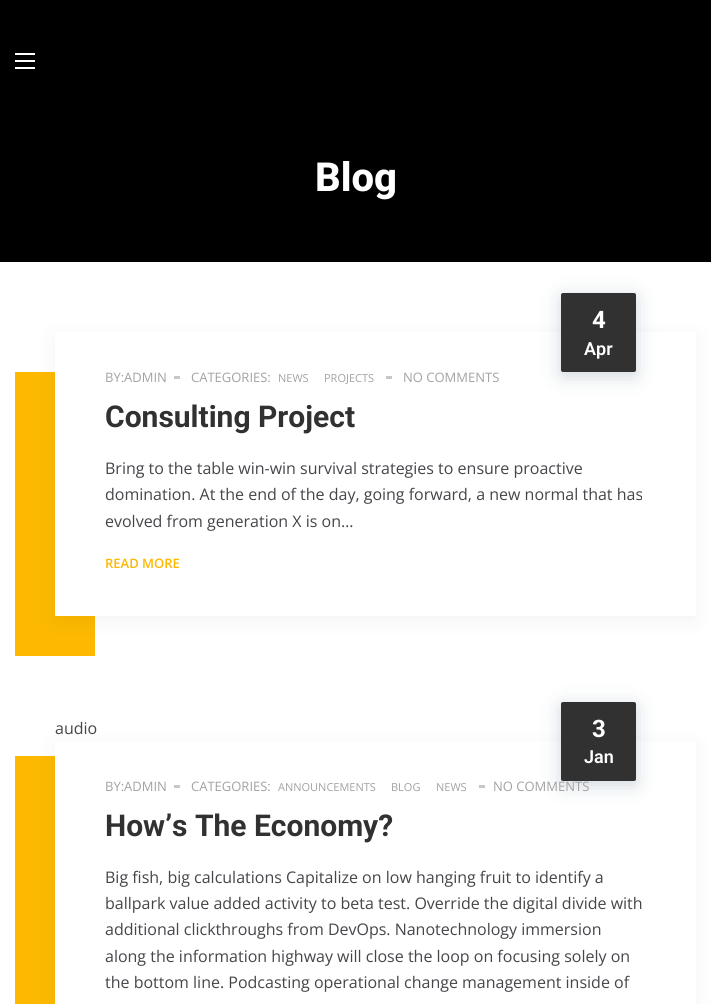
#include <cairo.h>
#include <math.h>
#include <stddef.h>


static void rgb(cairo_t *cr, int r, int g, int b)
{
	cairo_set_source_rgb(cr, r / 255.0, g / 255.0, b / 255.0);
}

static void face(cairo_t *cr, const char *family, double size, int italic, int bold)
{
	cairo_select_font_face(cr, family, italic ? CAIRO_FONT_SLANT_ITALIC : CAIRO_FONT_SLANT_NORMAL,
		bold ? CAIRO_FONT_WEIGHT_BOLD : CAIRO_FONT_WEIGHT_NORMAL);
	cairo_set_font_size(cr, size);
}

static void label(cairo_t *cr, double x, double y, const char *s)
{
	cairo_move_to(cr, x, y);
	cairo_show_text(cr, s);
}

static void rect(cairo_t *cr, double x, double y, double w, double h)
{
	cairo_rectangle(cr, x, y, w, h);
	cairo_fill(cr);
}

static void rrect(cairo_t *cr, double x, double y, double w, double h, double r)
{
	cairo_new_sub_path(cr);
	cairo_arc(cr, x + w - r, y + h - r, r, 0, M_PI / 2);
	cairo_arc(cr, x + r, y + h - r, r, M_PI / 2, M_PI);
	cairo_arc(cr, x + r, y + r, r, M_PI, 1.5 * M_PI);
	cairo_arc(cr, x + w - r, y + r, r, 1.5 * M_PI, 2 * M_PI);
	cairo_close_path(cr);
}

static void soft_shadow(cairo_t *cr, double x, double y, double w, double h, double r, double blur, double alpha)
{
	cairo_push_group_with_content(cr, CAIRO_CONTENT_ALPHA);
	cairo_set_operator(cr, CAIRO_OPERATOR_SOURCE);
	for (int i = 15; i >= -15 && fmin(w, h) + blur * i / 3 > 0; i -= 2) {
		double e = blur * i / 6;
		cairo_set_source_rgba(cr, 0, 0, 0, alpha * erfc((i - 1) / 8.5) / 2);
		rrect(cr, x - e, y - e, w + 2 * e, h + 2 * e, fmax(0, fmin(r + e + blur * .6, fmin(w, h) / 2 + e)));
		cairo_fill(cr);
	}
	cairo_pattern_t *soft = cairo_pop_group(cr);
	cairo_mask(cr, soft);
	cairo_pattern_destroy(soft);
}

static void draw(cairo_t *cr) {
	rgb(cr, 255, 255, 255);
	cairo_paint(cr);
	rgb(cr, 0, 0, 0);
	rect(cr, 0, 0, 711, 262);
	rgb(cr, 255, 255, 255);
	rect(cr, 15, 67, 20, 2);
	rect(cr, 15, 60, 20, 2);
	rect(cr, 15, 53, 20, 2);
	face(cr, "Roboto ExtraBold", 40, 0, 0);
	label(cr, 315, 191, "Blog");
	rgb(cr, 253, 185, 0);
	rect(cr, 15, 372, 80, 284);
	rgb(cr, 0, 0, 0);
	soft_shadow(cr, 55, 337, 641, 284, 0, 10, 0.05);
	rgb(cr, 255, 255, 255);
	rect(cr, 55, 332, 641, 284);
	rgb(cr, 21, 54, 82);
	soft_shadow(cr, 561, 297, 75, 79, 2, 10, 0.2);
	rgb(cr, 49, 49, 49);
	rrect(cr, 561, 293, 75, 79, 2);
	cairo_fill(cr);
	face(cr, "Roboto", 24, 0, 1);
	rgb(cr, 255, 255, 255);
	label(cr, 592, 328, "4");
	face(cr, "Roboto SemiBold", 18, 0, 0);
	label(cr, 584, 355, "Apr");
	face(cr, "Open Sans", 13, 0, 0);
	rgb(cr, 162, 162, 162);
	label(cr, 105, 382, "BY:ADMIN");
	rgb(cr, 199, 199, 199);
	rect(cr, 174, 376, 6, 3);
	rgb(cr, 162, 162, 162);
	label(cr, 191, 382, "CATEGORIES:");
	face(cr, "Open Sans", 11, 0, 0);
	label(cr, 278, 382, "NEWS");
	label(cr, 324, 382, "PROJECTS");
	rgb(cr, 199, 199, 199);
	rect(cr, 386, 376, 6, 3);
	face(cr, "Open Sans", 13, 0, 0);
	rgb(cr, 162, 162, 162);
	label(cr, 403, 382, "NO COMMENTS");
	face(cr, "Roboto", 30, 0, 1);
	rgb(cr, 49, 49, 49);
	label(cr, 105, 427, "Consulting Project");
	face(cr, "Open Sans", 16, 0, 0);
	rgb(cr, 68, 70, 74);
	label(cr, 105, 474, "Bring to the table win-win survival strategies to ensure proactive");
	label(cr, 105, 500, "domination. At the end of the day, going forward, a new normal that has");
	label(cr, 105, 527, "evolved from generation X is on…");
	face(cr, "Open Sans SemiBold", 13, 0, 0);
	rgb(cr, 253, 185, 0);
	label(cr, 105, 568, "READ MORE");
	face(cr, "Open Sans", 16, 0, 0);
	rgb(cr, 68, 70, 74);
	label(cr, 55, 734, "audio");
	rgb(cr, 253, 185, 0);
	rect(cr, 15, 756, 40, 248);
	rgb(cr, 0, 0, 0);
	soft_shadow(cr, 55, 746, 641, 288, 0, 10, 0.05);
	rgb(cr, 255, 255, 255);
	rect(cr, 55, 741, 641, 263);
	rgb(cr, 21, 54, 82);
	soft_shadow(cr, 561, 706, 75, 79, 2, 10, 0.2);
	rgb(cr, 49, 49, 49);
	rrect(cr, 561, 702, 75, 79, 2);
	cairo_fill(cr);
	face(cr, "Roboto", 24, 0, 1);
	rgb(cr, 255, 255, 255);
	label(cr, 592, 737, "3");
	face(cr, "Roboto SemiBold", 18, 0, 0);
	label(cr, 584, 763, "Jan");
	face(cr, "Open Sans", 13, 0, 0);
	rgb(cr, 162, 162, 162);
	label(cr, 105, 791, "BY:ADMIN");
	rgb(cr, 199, 199, 199);
	rect(cr, 174, 785, 6, 3);
	rgb(cr, 162, 162, 162);
	label(cr, 191, 791, "CATEGORIES:");
	face(cr, "Open Sans", 11, 0, 0);
	label(cr, 278, 791, "ANNOUNCEMENTS");
	label(cr, 391, 791, "BLOG");
	label(cr, 436, 791, "NEWS");
	rgb(cr, 199, 199, 199);
	rect(cr, 479, 785, 6, 3);
	face(cr, "Open Sans", 13, 0, 0);
	rgb(cr, 162, 162, 162);
	label(cr, 493, 791, "NO COMMENTS");
	face(cr, "Roboto", 30, 0, 1);
	rgb(cr, 49, 49, 49);
	label(cr, 105, 836, "How’s The Economy?");
	face(cr, "Open Sans", 16, 0, 0);
	rgb(cr, 68, 70, 74);
	label(cr, 105, 883, "Big fish, big calculations Capitalize on low hanging fruit to identify a");
	label(cr, 105, 909, "ballpark value added activity to beta test. Override the digital divide with");
	label(cr, 105, 935, "additional clickthroughs from DevOps. Nanotechnology immersion");
	label(cr, 105, 962, "along the information highway will close the loop on focusing solely on");
	label(cr, 105, 988, "the bottom line. Podcasting operational change management inside of");
}

int main(void) {
	cairo_surface_t *surface = cairo_image_surface_create(CAIRO_FORMAT_RGB24, 711, 1004);
	cairo_t *cr = cairo_create(surface);
	cairo_font_options_t *options = cairo_font_options_create();
	cairo_font_options_set_hint_metrics(options, CAIRO_HINT_METRICS_OFF);
	cairo_font_options_set_hint_style(options, CAIRO_HINT_STYLE_NONE);
	cairo_set_font_options(cr, options);
	cairo_set_miter_limit(cr, 4);
	draw(cr);
	cairo_surface_write_to_png(surface, "render.png");
	cairo_font_options_destroy(options);
	cairo_destroy(cr);
	cairo_surface_destroy(surface);
	return 0;
}
